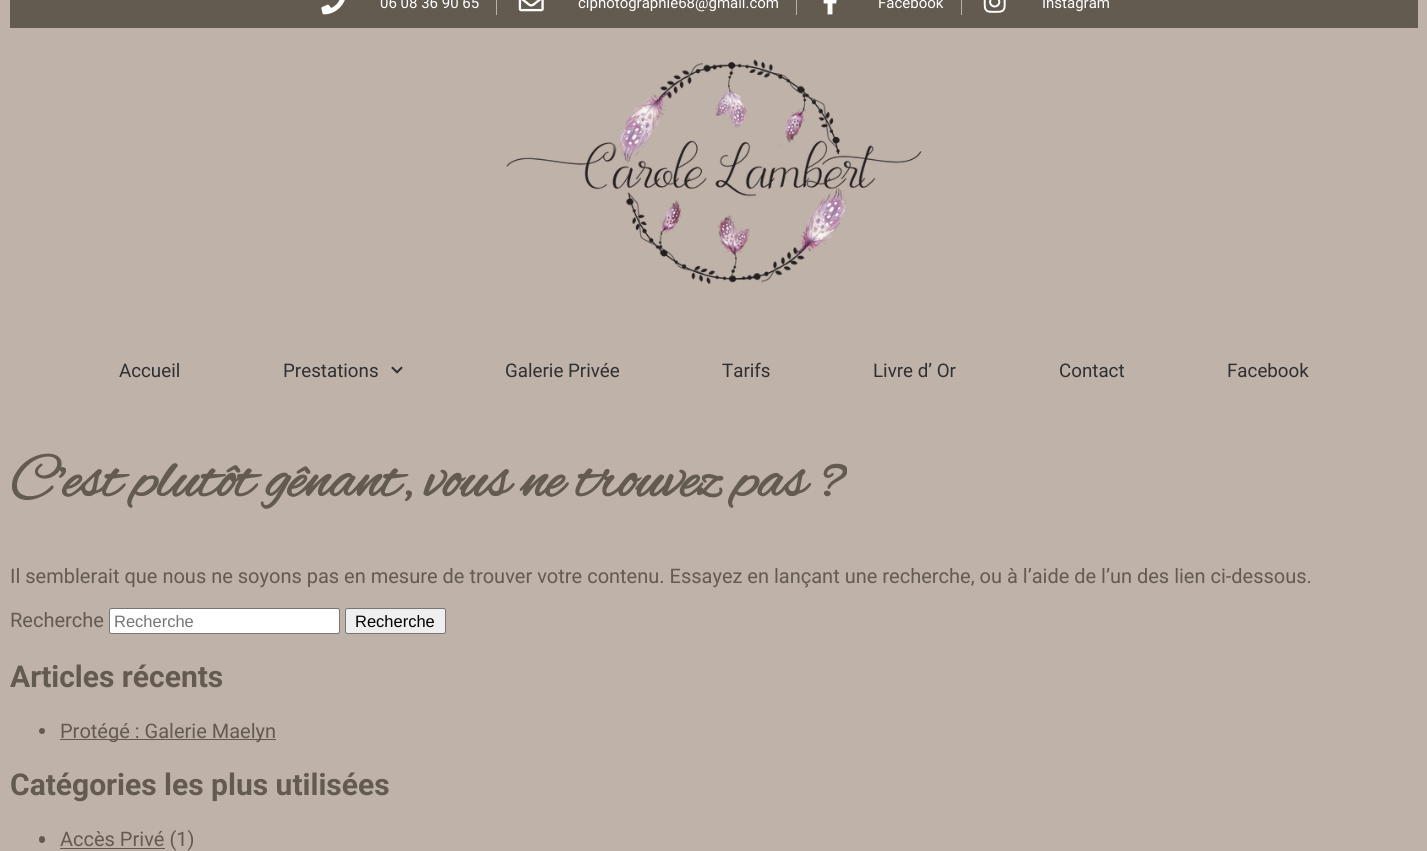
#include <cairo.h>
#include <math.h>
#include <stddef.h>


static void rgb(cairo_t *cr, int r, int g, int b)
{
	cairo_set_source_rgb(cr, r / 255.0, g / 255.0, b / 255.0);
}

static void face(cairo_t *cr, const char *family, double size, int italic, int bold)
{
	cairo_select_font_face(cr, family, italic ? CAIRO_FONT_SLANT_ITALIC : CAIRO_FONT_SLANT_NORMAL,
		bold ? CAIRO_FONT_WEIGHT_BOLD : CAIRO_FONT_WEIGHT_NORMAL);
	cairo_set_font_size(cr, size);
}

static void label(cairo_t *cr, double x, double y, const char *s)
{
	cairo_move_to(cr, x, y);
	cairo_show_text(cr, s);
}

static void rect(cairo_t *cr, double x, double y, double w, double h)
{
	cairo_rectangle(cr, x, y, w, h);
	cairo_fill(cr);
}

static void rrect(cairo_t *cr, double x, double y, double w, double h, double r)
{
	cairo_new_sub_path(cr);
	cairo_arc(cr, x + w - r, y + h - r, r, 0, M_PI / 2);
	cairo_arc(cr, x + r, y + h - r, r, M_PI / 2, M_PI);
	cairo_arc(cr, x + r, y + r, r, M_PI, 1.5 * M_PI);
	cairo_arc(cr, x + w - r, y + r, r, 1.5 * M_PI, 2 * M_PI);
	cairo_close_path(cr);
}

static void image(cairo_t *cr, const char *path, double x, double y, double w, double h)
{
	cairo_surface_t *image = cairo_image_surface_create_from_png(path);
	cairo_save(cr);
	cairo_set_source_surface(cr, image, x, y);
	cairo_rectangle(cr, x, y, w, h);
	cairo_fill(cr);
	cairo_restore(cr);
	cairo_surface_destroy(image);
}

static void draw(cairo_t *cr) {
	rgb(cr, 190, 178, 169);
	cairo_paint(cr);
	rgb(cr, 99, 90, 80);
	rect(cr, 10, 0, 1408, 28);
	image(cr, "image0.png", 321, 0, 24, 15);
	face(cr, "Roboto", 15, 0, 0);
	rgb(cr, 255, 255, 255);
	label(cr, 380, 8, "06 08 36 90 65");
	rgb(cr, 185, 176, 168);
	rect(cr, 496, 0, 1, 15);
	image(cr, "image1.png", 518, 0, 26, 12);
	rgb(cr, 255, 255, 255);
	label(cr, 578, 8, "clphotographie68@gmail.com");
	rgb(cr, 185, 176, 168);
	rect(cr, 796, 0, 1, 15);
	image(cr, "image2.png", 823, 0, 14, 15);
	rgb(cr, 255, 255, 255);
	label(cr, 878, 8, "Facebook");
	rgb(cr, 185, 176, 168);
	rect(cr, 961, 0, 1, 15);
	image(cr, "image3.png", 983, 0, 23, 13);
	rgb(cr, 255, 255, 255);
	label(cr, 1042, 8, "Instagram");
	image(cr, "image4.png", 506, 59, 416, 225);
	face(cr, "Roboto", 18.75, 0, 0);
	rgb(cr, 48, 48, 48);
	label(cr, 119, 377, "Accueil");
	label(cr, 283, 377, "Prestations");
	image(cr, "image5.png", 391, 366, 12, 8);
	label(cr, 505, 377, "Galerie Privée");
	label(cr, 722, 377, "Tarifs");
	label(cr, 873, 377, "Livre d’ Or");
	label(cr, 1059, 377, "Contact");
	label(cr, 1227, 377, "Facebook");
	face(cr, "Alex Brush", 62.5, 0, 1);
	rgb(cr, 99, 90, 80);
	label(cr, 10, 496, "C’est plutôt gênant, vous ne trouvez pas ?");
	face(cr, "Roboto", 20, 0, 0);
	label(cr, 10, 583, "Il semblerait que nous ne soyons pas en mesure de trouver votre contenu. Essayez en lançant une recherche, ou à l’aide de l’un des lien ci-dessous.");
	label(cr, 10, 627, "Recherche");
	rgb(cr, 255, 255, 255);
	rrect(cr, 109.5, 608.5, 230, 25, 2);
	cairo_fill_preserve(cr);
	rgb(cr, 118, 118, 118);
	cairo_set_line_width(cr, 1);
	cairo_stroke(cr);
	face(cr, "Liberation Sans", 16.5, 0, 0);
	rgb(cr, 117, 117, 117);
	label(cr, 114, 627, "Recherche");
	rgb(cr, 239, 239, 239);
	rrect(cr, 345.5, 608.5, 100, 25, 2);
	cairo_fill_preserve(cr);
	rgb(cr, 118, 118, 118);
	cairo_stroke(cr);
	rgb(cr, 0, 0, 0);
	label(cr, 355, 627, "Recherche");
	face(cr, "Roboto", 30, 0, 1);
	rgb(cr, 99, 90, 80);
	label(cr, 10, 687, "Articles récents");
	cairo_new_path(cr);
	cairo_arc(cr, 42, 731, 3, 0, 2 * M_PI);
	cairo_fill(cr);
	rect(cr, 60, 739, 216, 1);
	face(cr, "Roboto", 20, 0, 0);
	label(cr, 60, 738, "Protégé : Galerie Maelyn");
	face(cr, "Roboto", 30, 0, 1);
	label(cr, 10, 795, "Catégories les plus utilisées");
	rrect(cr, 39, 836, 6, 7, 3);
	cairo_fill(cr);
	rect(cr, 60, 848, 105, 1);
	face(cr, "Roboto", 20, 0, 0);
	label(cr, 60, 846, "Accès Privé (1)");
}

int main(void) {
	cairo_surface_t *surface = cairo_image_surface_create(CAIRO_FORMAT_RGB24, 1427, 851);
	cairo_t *cr = cairo_create(surface);
	cairo_font_options_t *options = cairo_font_options_create();
	cairo_font_options_set_hint_metrics(options, CAIRO_HINT_METRICS_OFF);
	cairo_font_options_set_hint_style(options, CAIRO_HINT_STYLE_NONE);
	cairo_set_font_options(cr, options);
	cairo_set_miter_limit(cr, 4);
	draw(cr);
	cairo_surface_write_to_png(surface, "render.png");
	cairo_font_options_destroy(options);
	cairo_destroy(cr);
	cairo_surface_destroy(surface);
	return 0;
}
